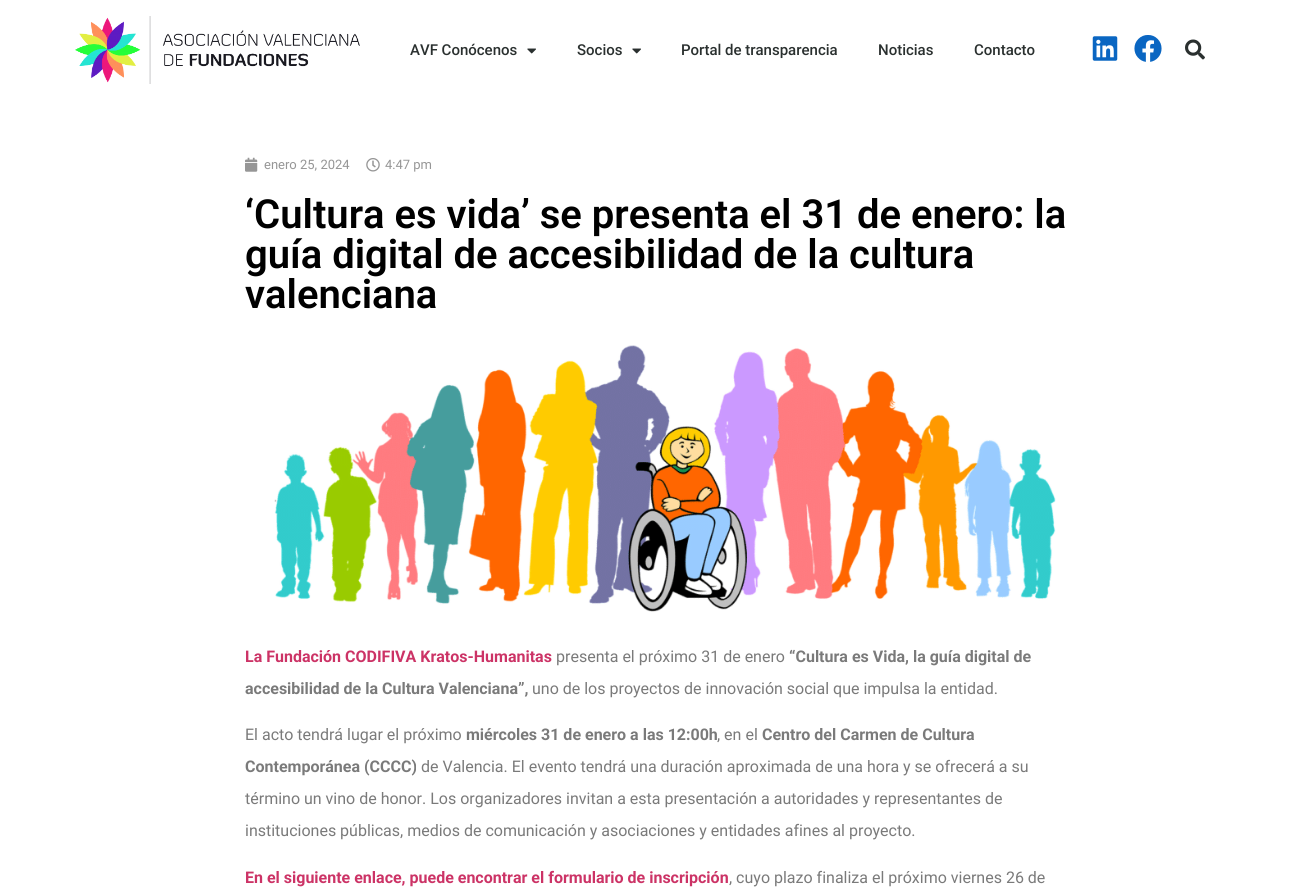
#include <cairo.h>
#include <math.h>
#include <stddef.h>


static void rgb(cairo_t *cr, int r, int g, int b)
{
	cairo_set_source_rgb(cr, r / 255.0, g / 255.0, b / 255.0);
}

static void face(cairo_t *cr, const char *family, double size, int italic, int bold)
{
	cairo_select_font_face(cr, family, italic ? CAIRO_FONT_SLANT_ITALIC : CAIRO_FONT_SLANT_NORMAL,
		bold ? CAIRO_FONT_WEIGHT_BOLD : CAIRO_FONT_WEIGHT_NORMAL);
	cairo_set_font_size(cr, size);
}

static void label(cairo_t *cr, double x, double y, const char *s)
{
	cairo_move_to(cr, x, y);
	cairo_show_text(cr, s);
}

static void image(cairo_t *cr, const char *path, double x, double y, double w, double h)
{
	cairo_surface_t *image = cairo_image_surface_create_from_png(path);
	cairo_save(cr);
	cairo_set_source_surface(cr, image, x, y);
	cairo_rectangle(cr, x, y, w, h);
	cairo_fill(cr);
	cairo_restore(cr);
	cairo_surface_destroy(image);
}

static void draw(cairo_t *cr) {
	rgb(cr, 255, 255, 255);
	cairo_paint(cr);
	image(cr, "image0.png", 75, 16, 285, 68);
	face(cr, "Roboto Medium", 15, 0, 0);
	rgb(cr, 42, 48, 47);
	label(cr, 410, 55, "AVF Conócenos");
	image(cr, "image1.png", 527, 48, 9, 6);
	label(cr, 577, 55, "Socios");
	image(cr, "image1.png", 632, 48, 9, 6);
	label(cr, 681, 55, "Portal de transparencia");
	label(cr, 878, 55, "Noticias");
	label(cr, 974, 55, "Contacto");
	image(cr, "image2.png", 1092, 36, 26, 25);
	image(cr, "image3.png", 1134, 35, 28, 27);
	image(cr, "image4.png", 1185, 39, 20, 21);
	image(cr, "image5.png", 245, 157, 13, 15);
	face(cr, "Roboto", 13, 0, 0);
	rgb(cr, 150, 150, 150);
	label(cr, 264, 169, "enero 25, 2024");
	image(cr, "image6.png", 366, 158, 14, 14);
	label(cr, 385, 169, "4:47 pm");
	face(cr, "Roboto SemiBold", 40, 0, 0);
	rgb(cr, 0, 0, 0);
	label(cr, 245, 228, "‘Cultura es vida’ se presenta el 31 de enero: la");
	label(cr, 245, 268, "guía digital de accesibilidad de la cultura");
	label(cr, 245, 308, "valenciana");
	image(cr, "image7.png", 274, 345, 782, 267);
	face(cr, "Roboto", 16, 0, 1);
	rgb(cr, 204, 51, 102);
	label(cr, 245, 662, "La Fundación CODIFIVA Kratos-Humanitas");
	face(cr, "Roboto", 16, 0, 0);
	rgb(cr, 122, 122, 122);
	label(cr, 556, 662, "presenta el próximo 31 de enero");
	face(cr, "Roboto", 16, 0, 1);
	label(cr, 789, 662, "“Cultura es Vida, la guía digital de");
	label(cr, 245, 694, "accesibilidad de la Cultura Valenciana”,");
	face(cr, "Roboto", 16, 0, 0);
	label(cr, 532, 694, "uno de los proyectos de innovación social que impulsa la entidad.");
	label(cr, 245, 740, "El acto tendrá lugar el próximo");
	face(cr, "Roboto", 16, 0, 1);
	label(cr, 466, 740, "miércoles 31 de enero a las 12:00h");
	face(cr, "Roboto", 16, 0, 0);
	label(cr, 717, 740, ", en el");
	face(cr, "Roboto", 16, 0, 1);
	label(cr, 762, 740, "Centro del Carmen de Cultura");
	label(cr, 245, 772, "Contemporánea (CCCC)");
	face(cr, "Roboto", 16, 0, 0);
	label(cr, 421, 772, "de Valencia. El evento tendrá una duración aproximada de una hora y se ofrecerá a su");
	label(cr, 245, 804, "término un vino de honor. Los organizadores invitan a esta presentación a autoridades y representantes de");
	label(cr, 245, 836, "instituciones públicas, medios de comunicación y asociaciones y entidades afines al proyecto.");
	face(cr, "Roboto", 16, 0, 1);
	rgb(cr, 204, 51, 102);
	label(cr, 245, 883, "En el siguiente enlace, puede encontrar el formulario de inscripción");
	face(cr, "Roboto", 16, 0, 0);
	rgb(cr, 122, 122, 122);
	label(cr, 729, 883, ", cuyo plazo finaliza el próximo viernes 26 de");
}

int main(void) {
	cairo_surface_t *surface = cairo_image_surface_create(CAIRO_FORMAT_RGB24, 1290, 896);
	cairo_t *cr = cairo_create(surface);
	cairo_font_options_t *options = cairo_font_options_create();
	cairo_font_options_set_hint_metrics(options, CAIRO_HINT_METRICS_OFF);
	cairo_font_options_set_hint_style(options, CAIRO_HINT_STYLE_NONE);
	cairo_set_font_options(cr, options);
	cairo_set_miter_limit(cr, 4);
	draw(cr);
	cairo_surface_write_to_png(surface, "render.png");
	cairo_font_options_destroy(options);
	cairo_destroy(cr);
	cairo_surface_destroy(surface);
	return 0;
}
